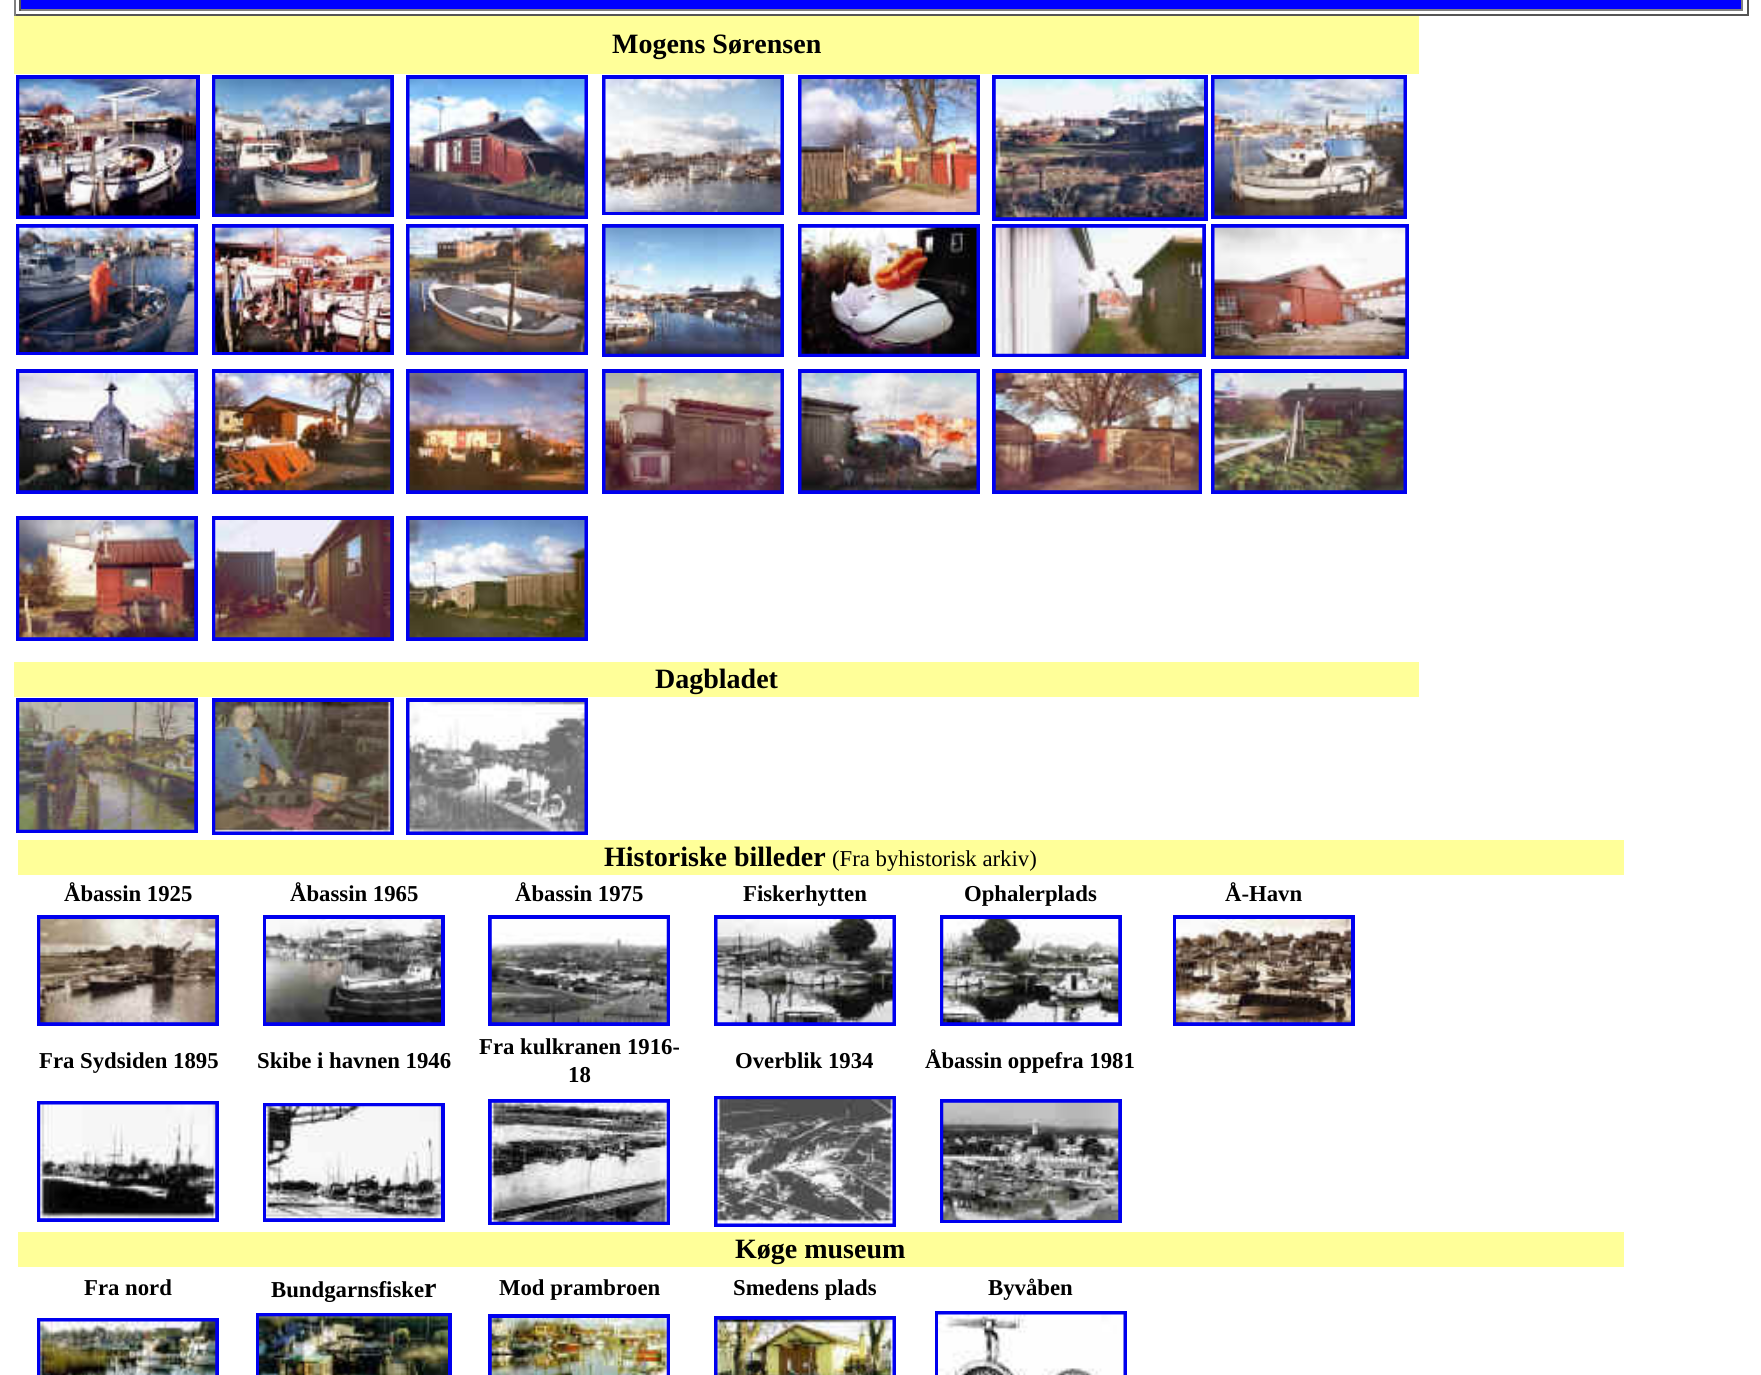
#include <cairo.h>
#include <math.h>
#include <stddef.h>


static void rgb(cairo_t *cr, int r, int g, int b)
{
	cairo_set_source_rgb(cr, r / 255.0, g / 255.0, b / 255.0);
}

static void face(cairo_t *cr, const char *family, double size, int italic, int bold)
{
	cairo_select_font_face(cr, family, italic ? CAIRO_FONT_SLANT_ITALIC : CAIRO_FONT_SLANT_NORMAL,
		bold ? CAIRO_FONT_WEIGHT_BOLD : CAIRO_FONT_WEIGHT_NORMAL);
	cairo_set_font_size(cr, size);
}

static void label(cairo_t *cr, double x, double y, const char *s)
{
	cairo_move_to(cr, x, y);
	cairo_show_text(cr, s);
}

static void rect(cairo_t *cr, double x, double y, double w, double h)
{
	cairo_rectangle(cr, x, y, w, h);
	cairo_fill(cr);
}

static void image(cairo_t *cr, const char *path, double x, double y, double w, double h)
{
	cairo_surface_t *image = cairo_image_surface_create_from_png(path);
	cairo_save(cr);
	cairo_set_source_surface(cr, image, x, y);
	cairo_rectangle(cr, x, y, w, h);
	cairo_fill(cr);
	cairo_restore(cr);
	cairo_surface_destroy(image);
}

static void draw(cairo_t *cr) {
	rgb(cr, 255, 255, 255);
	cairo_paint(cr);
	rgb(cr, 85, 85, 85);
	rect(cr, 1747, 0, 2, 16);
	rect(cr, 14, 14, 1734, 2);
	rgb(cr, 128, 128, 128);
	rect(cr, 14, 0, 2, 16);
	rgb(cr, 0, 0, 255);
	rect(cr, 21, 0, 1720, 9);
	rgb(cr, 128, 128, 128);
	rect(cr, 1741, 0, 2, 11);
	rect(cr, 19, 9, 1724, 2);
	rgb(cr, 85, 85, 85);
	rect(cr, 19, 0, 2, 11);
	rgb(cr, 255, 255, 153);
	rect(cr, 14, 16, 1405, 58);
	face(cr, "Liberation Serif", 28, 0, 1);
	rgb(cr, 0, 0, 0);
	label(cr, 612, 53, "Mogens Sørensen");
	cairo_rectangle(cr, 18, 77, 180, 140);
	rgb(cr, 0, 0, 238);
	cairo_set_line_width(cr, 4);
	cairo_stroke(cr);
	image(cr, "image0.png", 19, 79, 177, 137);
	cairo_rectangle(cr, 214, 77, 178, 138);
	cairo_stroke(cr);
	image(cr, "image1.png", 215, 79, 176, 135);
	cairo_rectangle(cr, 408, 77, 178, 140);
	cairo_stroke(cr);
	image(cr, "image2.png", 409, 79, 176, 137);
	cairo_rectangle(cr, 604, 77, 178, 136);
	cairo_stroke(cr);
	image(cr, "image3.png", 605, 79, 176, 133);
	cairo_rectangle(cr, 800, 77, 178, 136);
	cairo_stroke(cr);
	image(cr, "image4.png", 801, 79, 176, 133);
	cairo_rectangle(cr, 994, 77, 212, 142);
	cairo_stroke(cr);
	image(cr, "image5.png", 995, 79, 209, 139);
	cairo_rectangle(cr, 1213, 77, 192, 140);
	cairo_stroke(cr);
	image(cr, "image6.png", 1214, 79, 190, 137);
	cairo_rectangle(cr, 18, 226, 178, 127);
	cairo_stroke(cr);
	image(cr, "image7.png", 19, 227, 176, 125);
	cairo_rectangle(cr, 214, 226, 178, 127);
	cairo_stroke(cr);
	image(cr, "image8.png", 215, 227, 176, 125);
	cairo_rectangle(cr, 408, 226, 178, 127);
	cairo_stroke(cr);
	image(cr, "image9.png", 409, 227, 176, 125);
	cairo_rectangle(cr, 604, 226, 178, 129);
	cairo_stroke(cr);
	image(cr, "image10.png", 605, 227, 176, 127);
	cairo_rectangle(cr, 800, 226, 178, 129);
	cairo_stroke(cr);
	image(cr, "image11.png", 801, 227, 176, 127);
	cairo_rectangle(cr, 994, 226, 210, 129);
	cairo_stroke(cr);
	image(cr, "image12.png", 995, 227, 208, 127);
	cairo_rectangle(cr, 1213, 226, 194, 131);
	cairo_stroke(cr);
	image(cr, "image13.png", 1214, 227, 192, 129);
	cairo_rectangle(cr, 18, 371, 178, 121);
	cairo_stroke(cr);
	image(cr, "image14.png", 19, 373, 176, 118);
	cairo_rectangle(cr, 214, 371, 178, 121);
	cairo_stroke(cr);
	image(cr, "image15.png", 215, 373, 176, 118);
	cairo_rectangle(cr, 408, 371, 178, 121);
	cairo_stroke(cr);
	image(cr, "image16.png", 409, 373, 176, 118);
	cairo_rectangle(cr, 604, 371, 178, 121);
	cairo_stroke(cr);
	image(cr, "image17.png", 605, 373, 176, 118);
	cairo_rectangle(cr, 800, 371, 178, 121);
	cairo_stroke(cr);
	image(cr, "image18.png", 801, 373, 176, 118);
	cairo_rectangle(cr, 994, 371, 206, 121);
	cairo_stroke(cr);
	image(cr, "image19.png", 995, 373, 204, 118);
	cairo_rectangle(cr, 1213, 371, 192, 121);
	cairo_stroke(cr);
	image(cr, "image20.png", 1214, 373, 190, 118);
	cairo_rectangle(cr, 18, 518, 178, 121);
	cairo_stroke(cr);
	image(cr, "image21.png", 19, 520, 176, 118);
	cairo_rectangle(cr, 214, 518, 178, 121);
	cairo_stroke(cr);
	image(cr, "image22.png", 215, 520, 176, 118);
	cairo_rectangle(cr, 408, 518, 178, 121);
	cairo_stroke(cr);
	image(cr, "image23.png", 409, 520, 176, 118);
	rgb(cr, 255, 255, 153);
	rect(cr, 14, 662, 1405, 35);
	rgb(cr, 0, 0, 0);
	label(cr, 655, 688, "Dagbladet");
	cairo_rectangle(cr, 18, 700, 178, 131);
	rgb(cr, 0, 0, 238);
	cairo_stroke(cr);
	image(cr, "image24.png", 19, 702, 176, 128);
	cairo_rectangle(cr, 214, 700, 178, 133);
	cairo_stroke(cr);
	image(cr, "image25.png", 215, 702, 176, 130);
	cairo_rectangle(cr, 408, 700, 178, 133);
	cairo_stroke(cr);
	image(cr, "image26.png", 409, 702, 176, 130);
	rgb(cr, 255, 255, 153);
	rect(cr, 18, 840, 1606, 35);
	rgb(cr, 0, 0, 0);
	label(cr, 604, 866, "Historiske billeder");
	face(cr, "Liberation Serif", 22.75, 0, 0);
	label(cr, 832, 866, "(Fra byhistorisk arkiv)");
	face(cr, "Liberation Serif", 22.75, 0, 1);
	label(cr, 64, 901, "Åbassin 1925");
	label(cr, 290, 901, "Åbassin 1965");
	label(cr, 515, 901, "Åbassin 1975");
	label(cr, 743, 901, "Fiskerhytten");
	label(cr, 964, 901, "Ophalerplads");
	label(cr, 1225, 901, "Å-Havn");
	cairo_rectangle(cr, 39, 917, 178, 107);
	rgb(cr, 0, 0, 238);
	cairo_stroke(cr);
	image(cr, "image27.png", 40, 919, 176, 104);
	cairo_rectangle(cr, 265, 917, 178, 107);
	cairo_stroke(cr);
	image(cr, "image28.png", 266, 919, 175, 104);
	cairo_rectangle(cr, 490, 917, 178, 107);
	cairo_stroke(cr);
	image(cr, "image29.png", 491, 919, 176, 104);
	cairo_rectangle(cr, 716, 917, 178, 107);
	cairo_stroke(cr);
	image(cr, "image30.png", 717, 919, 176, 104);
	cairo_rectangle(cr, 942, 917, 178, 107);
	cairo_stroke(cr);
	image(cr, "image31.png", 943, 919, 176, 104);
	cairo_rectangle(cr, 1175, 917, 178, 107);
	cairo_stroke(cr);
	image(cr, "image32.png", 1176, 919, 175, 104);
	rgb(cr, 0, 0, 0);
	label(cr, 39, 1068, "Fra Sydsiden 1895");
	label(cr, 257, 1068, "Skibe i havnen 1946");
	label(cr, 479, 1054, "Fra kulkranen 1916-");
	label(cr, 568, 1082, "18");
	label(cr, 735, 1068, "Overblik 1934");
	label(cr, 925, 1068, "Åbassin oppefra 1981");
	cairo_rectangle(cr, 39, 1103, 178, 117);
	rgb(cr, 0, 0, 238);
	cairo_stroke(cr);
	image(cr, "image33.png", 40, 1104, 176, 115);
	cairo_rectangle(cr, 265, 1105, 178, 115);
	cairo_stroke(cr);
	image(cr, "image34.png", 266, 1106, 175, 113);
	cairo_rectangle(cr, 490, 1101, 178, 122);
	cairo_stroke(cr);
	image(cr, "image35.png", 491, 1102, 176, 120);
	cairo_rectangle(cr, 716, 1098, 178, 127);
	cairo_stroke(cr);
	image(cr, "image36.png", 717, 1099, 176, 125);
	cairo_rectangle(cr, 942, 1101, 178, 120);
	cairo_stroke(cr);
	image(cr, "image37.png", 943, 1102, 176, 118);
	rgb(cr, 255, 255, 153);
	rect(cr, 18, 1232, 1606, 35);
	face(cr, "Liberation Serif", 28, 0, 1);
	rgb(cr, 0, 0, 0);
	label(cr, 735, 1258, "Køge museum");
	face(cr, "Liberation Serif", 22.75, 0, 1);
	label(cr, 84, 1295, "Fra nord");
	label(cr, 271, 1297, "Bundgarnsfiske");
	face(cr, "Liberation Serif", 28, 0, 1);
	label(cr, 424, 1297, "r");
	face(cr, "Liberation Serif", 22.75, 0, 1);
	label(cr, 499, 1295, "Mod prambroen");
	label(cr, 733, 1295, "Smedens plads");
	label(cr, 988, 1295, "Byvåben");
	cairo_rectangle(cr, 39, 1320, 178, 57);
	rgb(cr, 0, 0, 238);
	cairo_stroke(cr);
	image(cr, "image38.png", 40, 1321, 176, 54);
	cairo_rectangle(cr, 258, 1315, 192, 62);
	cairo_stroke(cr);
	image(cr, "image39.png", 259, 1316, 189, 59);
	cairo_rectangle(cr, 490, 1316, 178, 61);
	cairo_stroke(cr);
	image(cr, "image40.png", 491, 1318, 176, 57);
	cairo_rectangle(cr, 716, 1318, 178, 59);
	cairo_stroke(cr);
	image(cr, "image41.png", 717, 1319, 176, 56);
	cairo_rectangle(cr, 937, 1313, 188, 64);
	cairo_stroke(cr);
	image(cr, "image42.png", 938, 1314, 186, 61);
}

int main(void) {
	cairo_surface_t *surface = cairo_image_surface_create(CAIRO_FORMAT_RGB24, 1761, 1375);
	cairo_t *cr = cairo_create(surface);
	cairo_font_options_t *options = cairo_font_options_create();
	cairo_font_options_set_hint_metrics(options, CAIRO_HINT_METRICS_OFF);
	cairo_font_options_set_hint_style(options, CAIRO_HINT_STYLE_NONE);
	cairo_set_font_options(cr, options);
	cairo_set_miter_limit(cr, 4);
	draw(cr);
	cairo_surface_write_to_png(surface, "render.png");
	cairo_font_options_destroy(options);
	cairo_destroy(cr);
	cairo_surface_destroy(surface);
	return 0;
}
